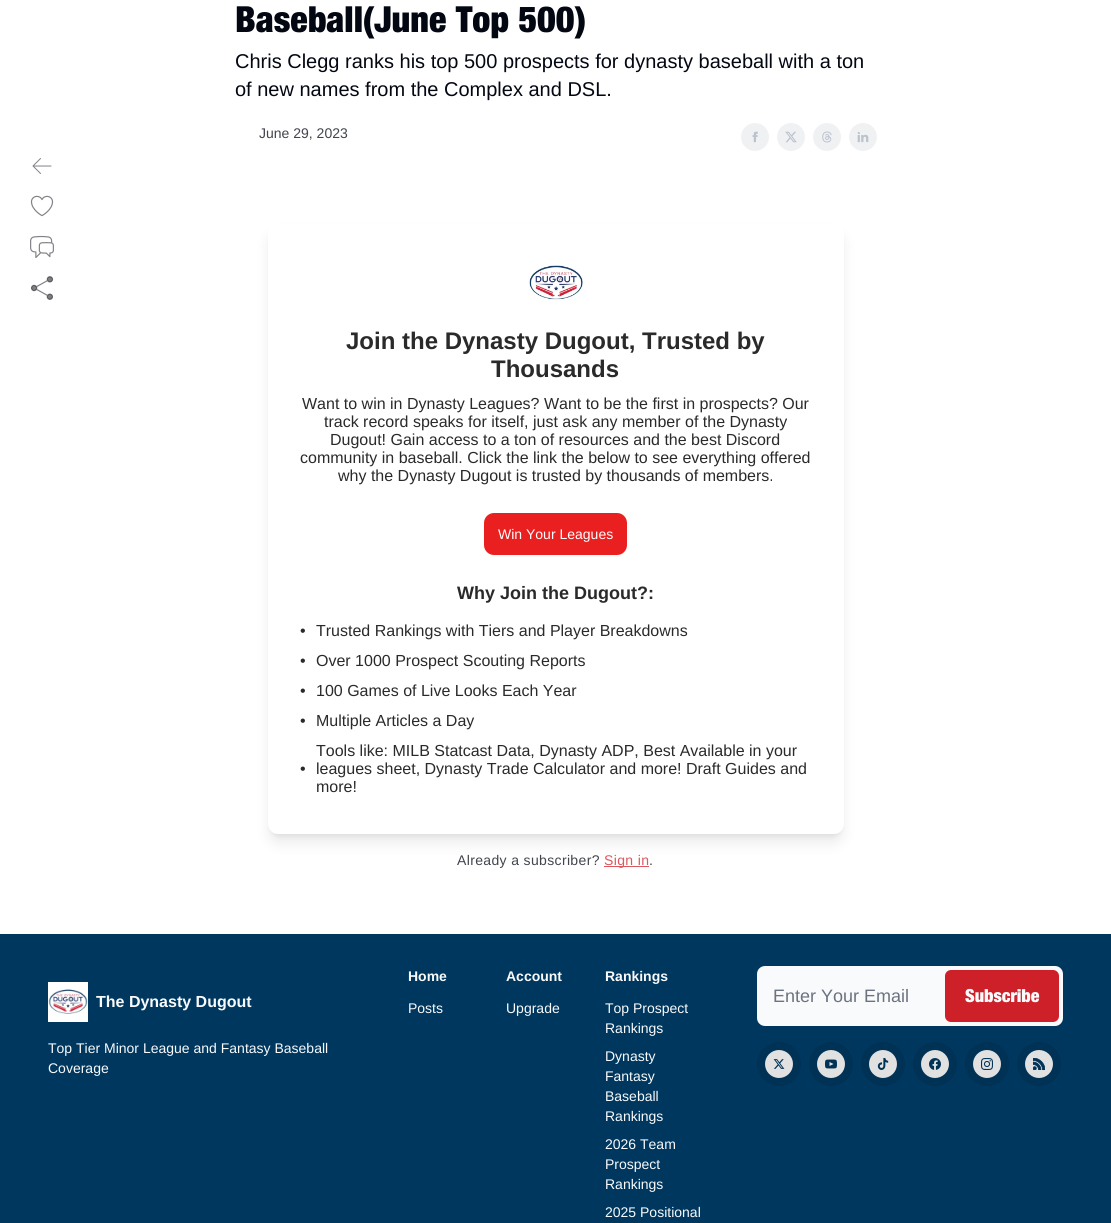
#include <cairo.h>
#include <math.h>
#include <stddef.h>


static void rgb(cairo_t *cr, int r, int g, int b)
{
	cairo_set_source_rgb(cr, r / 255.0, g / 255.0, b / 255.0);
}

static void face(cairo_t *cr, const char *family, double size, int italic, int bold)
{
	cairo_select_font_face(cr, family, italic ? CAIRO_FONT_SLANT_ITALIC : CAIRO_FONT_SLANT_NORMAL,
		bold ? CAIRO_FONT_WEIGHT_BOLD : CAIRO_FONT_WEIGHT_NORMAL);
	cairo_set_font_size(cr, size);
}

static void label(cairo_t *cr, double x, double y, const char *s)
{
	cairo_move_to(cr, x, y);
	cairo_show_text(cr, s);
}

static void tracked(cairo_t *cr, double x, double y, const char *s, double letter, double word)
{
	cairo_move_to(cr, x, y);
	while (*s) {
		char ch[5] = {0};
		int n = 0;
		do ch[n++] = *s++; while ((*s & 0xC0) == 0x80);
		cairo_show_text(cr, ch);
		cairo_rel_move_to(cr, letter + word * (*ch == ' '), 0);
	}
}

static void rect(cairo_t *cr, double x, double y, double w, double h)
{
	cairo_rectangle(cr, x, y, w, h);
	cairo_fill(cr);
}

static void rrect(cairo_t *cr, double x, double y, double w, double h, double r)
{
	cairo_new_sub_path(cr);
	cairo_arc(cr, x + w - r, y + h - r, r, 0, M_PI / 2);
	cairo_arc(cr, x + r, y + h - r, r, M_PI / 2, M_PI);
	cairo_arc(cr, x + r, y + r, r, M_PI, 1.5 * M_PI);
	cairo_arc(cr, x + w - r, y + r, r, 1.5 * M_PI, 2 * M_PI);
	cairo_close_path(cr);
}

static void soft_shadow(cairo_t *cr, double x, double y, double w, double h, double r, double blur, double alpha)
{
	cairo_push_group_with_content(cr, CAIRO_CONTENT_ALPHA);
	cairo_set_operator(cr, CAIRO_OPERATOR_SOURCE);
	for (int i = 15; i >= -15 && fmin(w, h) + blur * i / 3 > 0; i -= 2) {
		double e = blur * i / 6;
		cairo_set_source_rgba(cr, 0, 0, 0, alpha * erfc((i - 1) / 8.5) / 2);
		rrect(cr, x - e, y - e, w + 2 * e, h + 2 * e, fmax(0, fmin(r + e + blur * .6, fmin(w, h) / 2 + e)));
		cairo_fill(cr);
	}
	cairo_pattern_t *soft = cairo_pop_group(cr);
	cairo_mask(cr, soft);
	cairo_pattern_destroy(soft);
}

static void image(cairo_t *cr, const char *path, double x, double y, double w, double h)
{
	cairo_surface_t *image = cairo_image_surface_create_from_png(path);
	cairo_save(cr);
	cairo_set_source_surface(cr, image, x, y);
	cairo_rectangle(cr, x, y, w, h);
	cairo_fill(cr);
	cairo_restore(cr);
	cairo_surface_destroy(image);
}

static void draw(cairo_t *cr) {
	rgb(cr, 255, 255, 255);
	cairo_paint(cr);
	face(cr, "Helvetica Neue Black", 36, 0, 0);
	rgb(cr, 3, 7, 18);
	label(cr, 235, 32, "Baseball(June Top 500)");
	face(cr, "Liberation Sans", 20, 0, 0);
	label(cr, 235, 68, "Chris Clegg ranks his top 500 prospects for dynasty baseball with a ton");
	label(cr, 235, 96, "of new names from the Complex and DSL.");
	face(cr, "Liberation Sans", 14, 0, 0);
	rgb(cr, 66, 69, 77);
	label(cr, 259, 138, "June 29, 2023");
	image(cr, "image0.png", 741, 123, 28, 28);
	image(cr, "image1.png", 777, 123, 28, 28);
	image(cr, "image2.png", 813, 123, 28, 28);
	image(cr, "image3.png", 849, 123, 28, 28);
	cairo_new_path(cr);
	cairo_move_to(cr, 40.5, 173.5);
	cairo_line_to(cr, 33, 166);
	cairo_move_to(cr, 33, 166);
	cairo_line_to(cr, 40.5, 158.5);
	cairo_move_to(cr, 33, 166);
	cairo_line_to(cr, 51, 166);
	rgb(cr, 129, 131, 137);
	cairo_set_line_width(cr, 1);
	cairo_set_line_cap(cr, CAIRO_LINE_CAP_ROUND);
	cairo_set_line_join(cr, CAIRO_LINE_JOIN_ROUND);
	cairo_stroke(cr);
	image(cr, "image4.png", 30, 195, 24, 22);
	image(cr, "image5.png", 30, 235, 24, 23);
	image(cr, "image6.png", 31, 276, 23, 24);
	rgb(cr, 0, 0, 0);
	soft_shadow(cr, 272, 231, 568, 603, 6, 3, 0.1);
	soft_shadow(cr, 271, 236, 570, 605, 7, 7.5, 0.1);
	rgb(cr, 255, 255, 255);
	rrect(cr, 268, 223, 576, 611, 10);
	cairo_fill(cr);
	image(cr, "image7.png", 529, 265, 55, 35);
	face(cr, "Liberation Sans", 24, 0, 1);
	rgb(cr, 42, 42, 42);
	label(cr, 346, 349, "Join the Dynasty Dugout, Trusted by");
	label(cr, 491, 377, "Thousands");
	face(cr, "Liberation Sans", 16, 0, 0);
	label(cr, 302, 409, "Want to win in Dynasty Leagues? Want to be the first in prospects? Our");
	label(cr, 324, 427, "track record speaks for itself, just ask any member of the Dynasty");
	label(cr, 330, 445, "Dugout! Gain access to a ton of resources and the best Discord");
	label(cr, 300, 463, "community in baseball. Click the link the below to see everything offered");
	label(cr, 338, 481, "why the Dynasty Dugout is trusted by thousands of members.");
	rgb(cr, 234, 31, 31);
	rrect(cr, 484, 513, 143, 42, 10);
	cairo_fill(cr);
	face(cr, "Liberation Sans", 14, 0, 0);
	rgb(cr, 255, 255, 255);
	label(cr, 498, 539, "Win Your Leagues");
	face(cr, "Liberation Sans", 18, 0, 1);
	rgb(cr, 42, 42, 42);
	label(cr, 457, 599, "Why Join the Dugout?:");
	face(cr, "Liberation Sans", 16, 0, 0);
	label(cr, 300, 636, "•");
	label(cr, 316, 636, "Trusted Rankings with Tiers and Player Breakdowns");
	label(cr, 300, 666, "•");
	label(cr, 316, 666, "Over 1000 Prospect Scouting Reports");
	label(cr, 300, 696, "•");
	label(cr, 316, 696, "100 Games of Live Looks Each Year");
	label(cr, 300, 726, "•");
	label(cr, 316, 726, "Multiple Articles a Day");
	label(cr, 316, 756, "Tools like: MILB Statcast Data, Dynasty ADP, Best Available in your");
	label(cr, 300, 774, "•");
	label(cr, 316, 774, "leagues sheet, Dynasty Trade Calculator and more! Draft Guides and");
	label(cr, 316, 792, "more!");
	face(cr, "Liberation Sans", 14, 0, 0);
	rgb(cr, 66, 69, 77);
	tracked(cr, 457, 865, "Already a subscriber?", 0.35, 0);
	rgb(cr, 218, 88, 95);
	rect(cr, 604, 866, 45, 1);
	rgb(cr, 218, 88, 94);
	tracked(cr, 604, 865, "Sign in", 0.35, 0);
	rgb(cr, 66, 69, 77);
	tracked(cr, 649, 865, ".", 0.35, 0);
	rgb(cr, 0, 55, 95);
	rect(cr, 0, 934, 1111, 289);
	image(cr, "image8.png", 48, 982, 40, 40);
	face(cr, "Liberation Sans", 16, 0, 1);
	rgb(cr, 249, 250, 251);
	label(cr, 96, 1007, "The Dynasty Dugout");
	face(cr, "Liberation Sans", 14, 0, 0);
	label(cr, 48, 1053, "Top Tier Minor League and Fantasy Baseball");
	label(cr, 48, 1073, "Coverage");
	face(cr, "Liberation Sans", 14, 0, 1);
	label(cr, 408, 981, "Home");
	face(cr, "Liberation Sans", 14, 0, 0);
	label(cr, 408, 1013, "Posts");
	face(cr, "Liberation Sans", 14, 0, 1);
	label(cr, 506, 981, "Account");
	face(cr, "Liberation Sans", 14, 0, 0);
	label(cr, 506, 1013, "Upgrade");
	face(cr, "Liberation Sans", 14, 0, 1);
	label(cr, 605, 981, "Rankings");
	face(cr, "Liberation Sans", 14, 0, 0);
	label(cr, 605, 1013, "Top Prospect");
	label(cr, 605, 1033, "Rankings");
	label(cr, 605, 1061, "Dynasty");
	label(cr, 605, 1081, "Fantasy");
	label(cr, 605, 1101, "Baseball");
	label(cr, 605, 1121, "Rankings");
	label(cr, 605, 1149, "2026 Team");
	label(cr, 605, 1169, "Prospect");
	label(cr, 605, 1189, "Rankings");
	label(cr, 605, 1217, "2025 Positional");
	rrect(cr, 757, 966, 306, 60, 8);
	cairo_fill(cr);
	face(cr, "Liberation Sans", 18, 0, 0);
	rgb(cr, 107, 114, 128);
	label(cr, 773, 1002, "Enter Your Email");
	rgb(cr, 206, 32, 41);
	rrect(cr, 945, 970, 114, 52, 6);
	cairo_fill(cr);
	face(cr, "Helvetica Neue Black", 18, 0, 0);
	rgb(cr, 249, 250, 251);
	label(cr, 965, 1002, "Subscribe");
	cairo_new_path(cr);
	cairo_arc(cr, 779, 1064, 14, 0, 2 * M_PI);
	cairo_fill(cr);
	image(cr, "image9.png", 773, 1059, 12, 10);
	cairo_set_source_rgba(cr, 0, 0, 0, 0.1);
	cairo_arc(cr, 779, 1064, 22, 0, 2 * M_PI);
	cairo_fill(cr);
	rgb(cr, 249, 250, 251);
	cairo_arc(cr, 831, 1064, 14, 0, 2 * M_PI);
	cairo_fill(cr);
	image(cr, "image10.png", 825, 1059, 12, 10);
	cairo_set_source_rgba(cr, 0, 0, 0, 0.1);
	cairo_arc(cr, 831, 1064, 22, 0, 2 * M_PI);
	cairo_fill(cr);
	rgb(cr, 249, 250, 251);
	cairo_arc(cr, 883, 1064, 14, 0, 2 * M_PI);
	cairo_fill(cr);
	image(cr, "image11.png", 877, 1058, 12, 12);
	cairo_set_source_rgba(cr, 0, 0, 0, 0.1);
	cairo_arc(cr, 883, 1064, 22, 0, 2 * M_PI);
	cairo_fill(cr);
	rgb(cr, 249, 250, 251);
	cairo_arc(cr, 935, 1064, 14, 0, 2 * M_PI);
	cairo_fill(cr);
	image(cr, "image12.png", 929, 1058, 12, 12);
	cairo_set_source_rgba(cr, 0, 0, 0, 0.1);
	cairo_arc(cr, 935, 1064, 22, 0, 2 * M_PI);
	cairo_fill(cr);
	rgb(cr, 249, 250, 251);
	cairo_arc(cr, 987, 1064, 14, 0, 2 * M_PI);
	cairo_fill(cr);
	image(cr, "image13.png", 981, 1058, 12, 12);
	cairo_set_source_rgba(cr, 0, 0, 0, 0.1);
	cairo_arc(cr, 987, 1064, 22, 0, 2 * M_PI);
	cairo_fill(cr);
	rgb(cr, 249, 250, 251);
	cairo_arc(cr, 1039, 1064, 14, 0, 2 * M_PI);
	cairo_fill(cr);
	image(cr, "image14.png", 1033, 1058, 12, 12);
	cairo_set_source_rgba(cr, 0, 0, 0, 0.1);
	cairo_arc(cr, 1039, 1064, 22, 0, 2 * M_PI);
	cairo_fill(cr);
}

int main(void) {
	cairo_surface_t *surface = cairo_image_surface_create(CAIRO_FORMAT_RGB24, 1111, 1223);
	cairo_t *cr = cairo_create(surface);
	cairo_font_options_t *options = cairo_font_options_create();
	cairo_font_options_set_hint_metrics(options, CAIRO_HINT_METRICS_OFF);
	cairo_font_options_set_hint_style(options, CAIRO_HINT_STYLE_NONE);
	cairo_set_font_options(cr, options);
	cairo_set_miter_limit(cr, 4);
	draw(cr);
	cairo_surface_write_to_png(surface, "render.png");
	cairo_font_options_destroy(options);
	cairo_destroy(cr);
	cairo_surface_destroy(surface);
	return 0;
}
